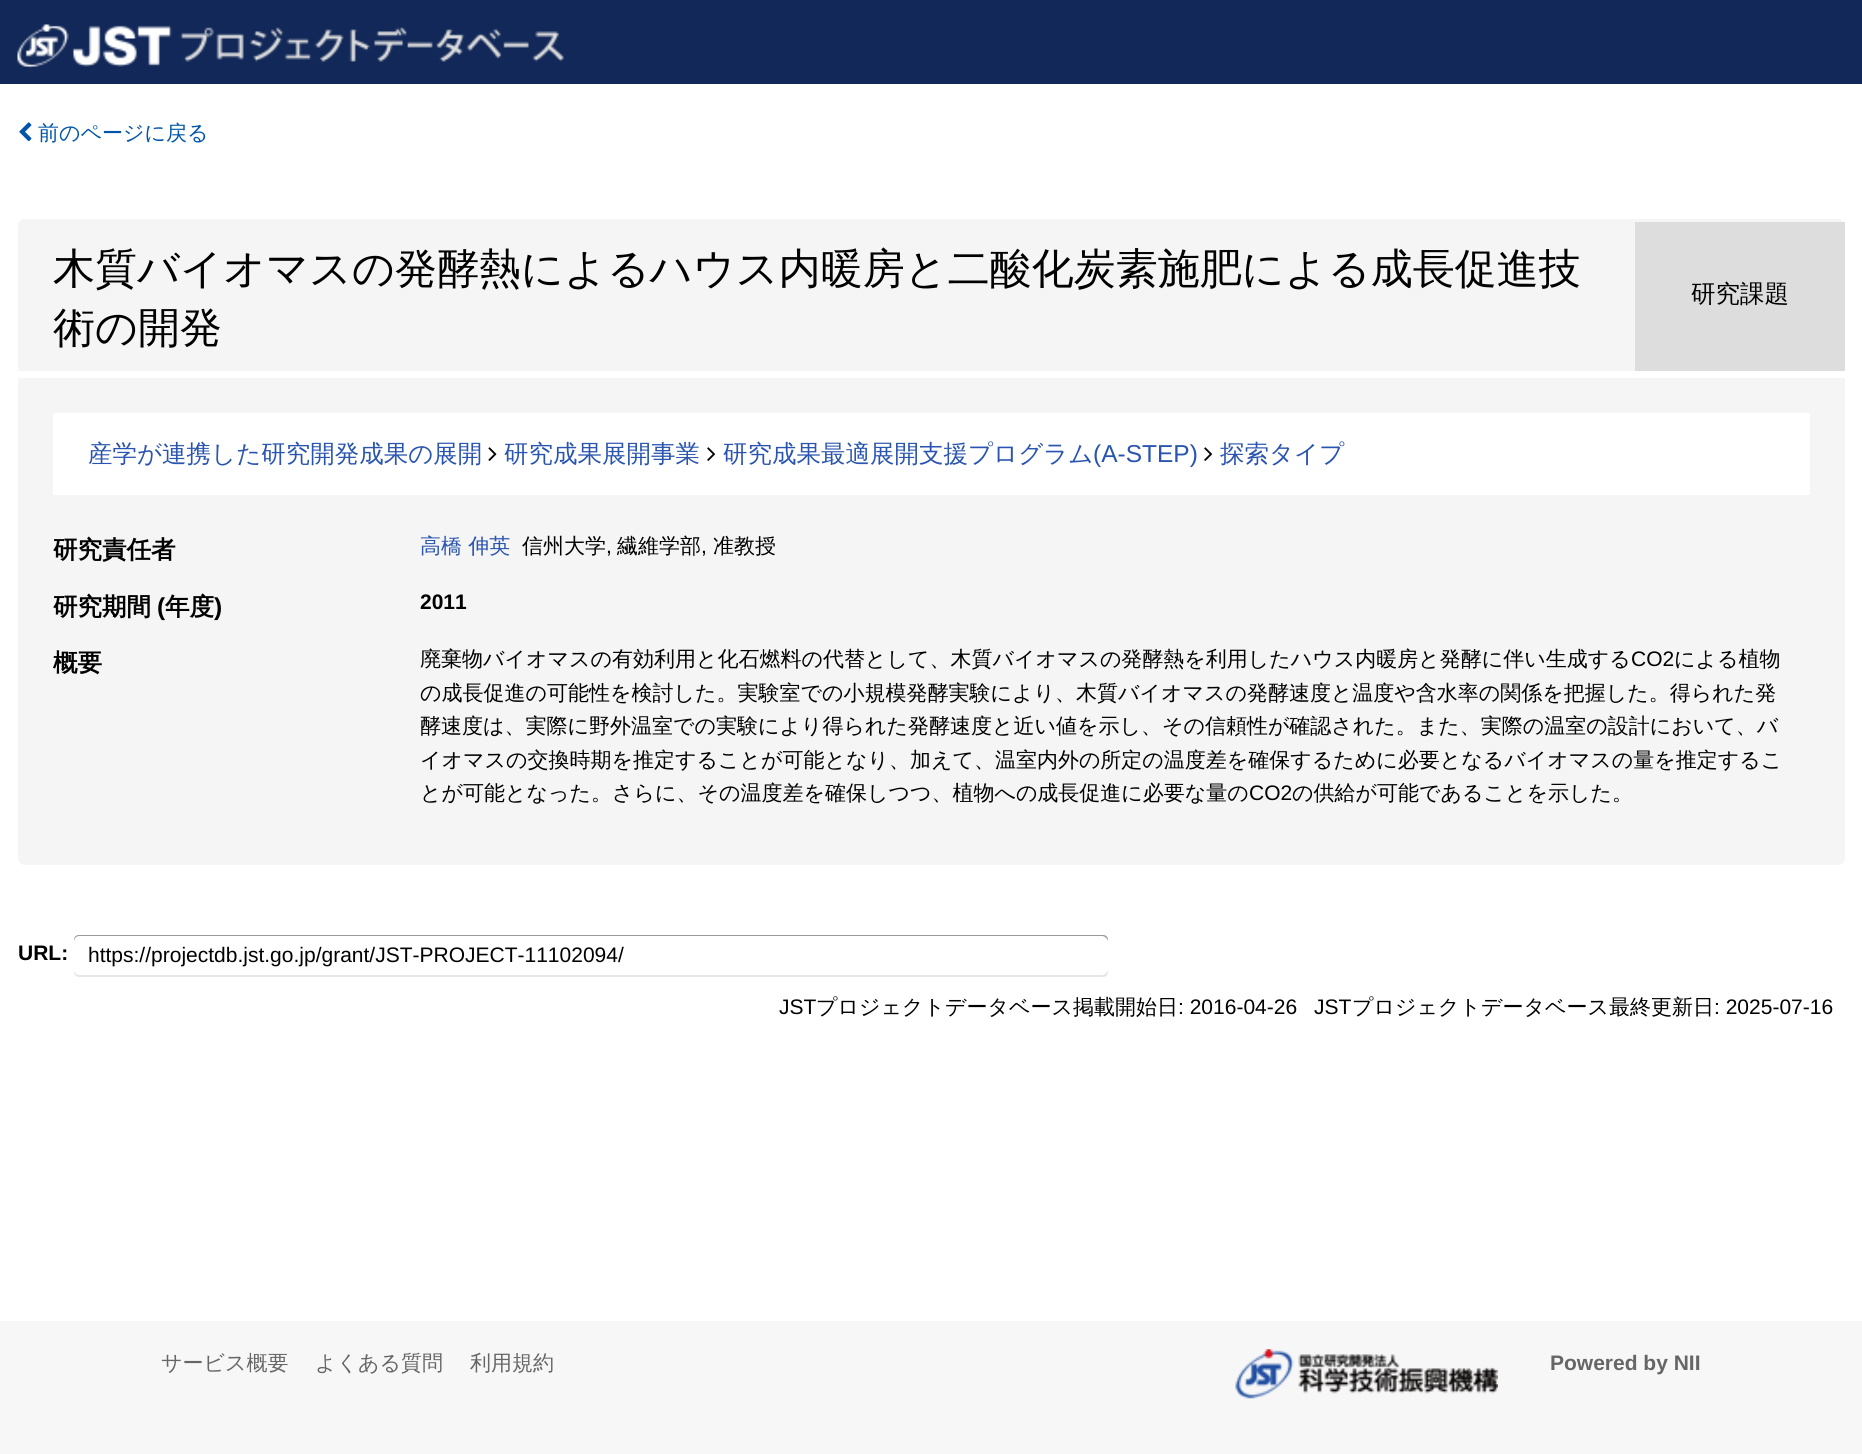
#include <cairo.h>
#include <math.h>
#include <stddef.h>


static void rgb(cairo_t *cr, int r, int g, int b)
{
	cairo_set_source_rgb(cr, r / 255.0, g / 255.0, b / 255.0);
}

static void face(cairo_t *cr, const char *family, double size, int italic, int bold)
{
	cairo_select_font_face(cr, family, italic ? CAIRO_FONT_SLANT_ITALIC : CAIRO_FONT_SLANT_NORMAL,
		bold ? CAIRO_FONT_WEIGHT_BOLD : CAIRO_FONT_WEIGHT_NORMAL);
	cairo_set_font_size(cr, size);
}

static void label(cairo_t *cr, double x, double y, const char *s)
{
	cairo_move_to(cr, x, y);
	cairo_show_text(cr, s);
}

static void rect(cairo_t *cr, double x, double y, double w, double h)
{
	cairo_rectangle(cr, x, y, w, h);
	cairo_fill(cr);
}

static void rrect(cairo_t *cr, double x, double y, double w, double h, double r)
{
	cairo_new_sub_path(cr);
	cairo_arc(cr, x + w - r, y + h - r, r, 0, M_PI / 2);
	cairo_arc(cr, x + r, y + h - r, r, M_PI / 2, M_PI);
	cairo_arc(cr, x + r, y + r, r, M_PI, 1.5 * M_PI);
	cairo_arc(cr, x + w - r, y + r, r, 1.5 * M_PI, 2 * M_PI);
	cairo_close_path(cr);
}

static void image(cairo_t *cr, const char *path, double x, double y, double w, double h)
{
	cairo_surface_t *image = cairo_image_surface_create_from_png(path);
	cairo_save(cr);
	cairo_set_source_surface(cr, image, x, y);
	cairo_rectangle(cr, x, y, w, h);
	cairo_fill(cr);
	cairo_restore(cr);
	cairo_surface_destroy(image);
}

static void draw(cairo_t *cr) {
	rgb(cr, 255, 255, 255);
	cairo_paint(cr);
	rgb(cr, 18, 40, 88);
	rect(cr, 0, 0, 1862, 84);
	image(cr, "image0.png", 17, 24, 547, 45);
	image(cr, "image1.png", 19, 122, 13, 20);
	face(cr, "WenQuanYi Zen Hei Medium", 21, 0, 0);
	rgb(cr, 0, 85, 170);
	label(cr, 38, 140, "前のページに戻る");
	rgb(cr, 245, 245, 245);
	rrect(cr, 18, 219, 1827, 646, 7);
	cairo_fill(cr);
	rgb(cr, 221, 221, 221);
	rect(cr, 1635, 222, 210, 149);
	face(cr, "WenQuanYi Zen Hei Medium", 42, 0, 0);
	rgb(cr, 0, 0, 0);
	label(cr, 53, 283, "木質バイオマスの発酵熱によるハウス内暖房と二酸化炭素施肥による成長促進技");
	label(cr, 53, 342, "術の開発");
	face(cr, "WenQuanYi Zen Hei Medium", 24.5, 0, 0);
	label(cr, 1691, 302, "研究課題");
	rgb(cr, 255, 255, 255);
	rect(cr, 18, 371, 1827, 7);
	rect(cr, 53, 413, 1757, 82);
	rgb(cr, 41, 84, 175);
	label(cr, 88, 462, "産学が連携した研究開発成果の展開");
	image(cr, "image2.png", 488, 447, 9, 14);
	label(cr, 504, 462, "研究成果展開事業");
	image(cr, "image3.png", 707, 447, 9, 14);
	label(cr, 723, 462, "研究成果最適展開支援プログラム");
	face(cr, "Liberation Sans", 24.5, 0, 0);
	label(cr, 1093, 462, "(A-STEP)");
	image(cr, "image3.png", 1204, 447, 9, 14);
	face(cr, "WenQuanYi Zen Hei Medium", 24.5, 0, 0);
	label(cr, 1220, 462, "探索タイプ");
	face(cr, "WenQuanYi Zen Hei", 24.5, 0, 1);
	rgb(cr, 0, 0, 0);
	label(cr, 53, 558, "研究責任者");
	face(cr, "WenQuanYi Zen Hei Medium", 21, 0, 0);
	rgb(cr, 41, 84, 175);
	label(cr, 420, 553, "高橋 伸英");
	rgb(cr, 0, 0, 0);
	label(cr, 522, 553, "信州大学");
	face(cr, "Liberation Sans", 21, 0, 0);
	label(cr, 606, 553, ",");
	face(cr, "WenQuanYi Zen Hei Medium", 21, 0, 0);
	label(cr, 617, 553, "繊維学部");
	face(cr, "Liberation Sans", 21, 0, 0);
	label(cr, 701, 553, ",");
	face(cr, "WenQuanYi Zen Hei Medium", 21, 0, 0);
	label(cr, 713, 553, "准教授");
	face(cr, "WenQuanYi Zen Hei", 24.5, 0, 1);
	label(cr, 53, 615, "研究期間");
	face(cr, "Liberation Sans", 24.5, 0, 1);
	label(cr, 157, 615, "(");
	face(cr, "WenQuanYi Zen Hei", 24.5, 0, 1);
	label(cr, 165, 615, "年度");
	face(cr, "Liberation Sans", 24.5, 0, 1);
	label(cr, 214, 615, ")");
	face(cr, "Liberation Sans", 21, 0, 1);
	label(cr, 420, 609, "2011");
	face(cr, "WenQuanYi Zen Hei", 24.5, 0, 1);
	label(cr, 53, 671, "概要");
	face(cr, "WenQuanYi Zen Hei Medium", 21, 0, 0);
	label(cr, 420, 666, "廃棄物バイオマスの有効利用と化石燃料の代替として、木質バイオマスの発酵熱を利用したハウス内暖房と発酵に伴い生成する");
	face(cr, "Liberation Sans", 21, 0, 0);
	label(cr, 1631, 666, "CO2");
	face(cr, "WenQuanYi Zen Hei Medium", 21, 0, 0);
	label(cr, 1674, 666, "による植物");
	label(cr, 420, 700, "の成長促進の可能性を検討した。実験室での小規模発酵実験により、木質バイオマスの発酵速度と温度や含水率の関係を把握した。得られた発");
	label(cr, 420, 733, "酵速度は、実際に野外温室での実験により得られた発酵速度と近い値を示し、その信頼性が確認された。また、実際の温室の設計において、バ");
	label(cr, 420, 767, "イオマスの交換時期を推定することが可能となり、加えて、温室内外の所定の温度差を確保するために必要となるバイオマスの量を推定するこ");
	label(cr, 420, 800, "とが可能となった。さらに、その温度差を確保しつつ、植物への成長促進に必要な量の");
	face(cr, "Liberation Sans", 21, 0, 0);
	label(cr, 1249, 800, "CO2");
	face(cr, "WenQuanYi Zen Hei Medium", 21, 0, 0);
	label(cr, 1292, 800, "の供給が可能であることを示した。");
	face(cr, "Liberation Sans", 21, 0, 1);
	label(cr, 18, 960, "URL:");
	rgb(cr, 230, 230, 230);
	cairo_new_path(cr);
	cairo_move_to(cr, 74, 970);
	cairo_line_to(cr, 74, 972);
	cairo_curve_to(cr, 74, 975, 76, 977, 79, 977);
	cairo_line_to(cr, 1103, 977);
	cairo_curve_to(cr, 1106, 977, 1108, 975, 1108, 972);
	cairo_line_to(cr, 1108, 970);
	cairo_curve_to(cr, 1108, 972, 1105, 975, 1102, 975);
	cairo_line_to(cr, 79, 975);
	cairo_curve_to(cr, 76, 975, 74, 972, 74, 970);
	cairo_close_path(cr);
	cairo_fill(cr);
	rgb(cr, 153, 153, 153);
	cairo_new_path(cr);
	cairo_move_to(cr, 79, 936);
	cairo_line_to(cr, 1102, 936);
	cairo_curve_to(cr, 1105, 936, 1108, 939, 1108, 942);
	cairo_line_to(cr, 1108, 940);
	cairo_curve_to(cr, 1108, 937, 1106, 935, 1103, 935);
	cairo_line_to(cr, 79, 935);
	cairo_curve_to(cr, 76, 935, 74, 937, 74, 940);
	cairo_line_to(cr, 74, 942);
	cairo_curve_to(cr, 74, 939, 76, 936, 79, 936);
	cairo_close_path(cr);
	cairo_fill(cr);
	face(cr, "Liberation Sans", 21, 0, 0);
	rgb(cr, 0, 0, 0);
	label(cr, 88, 962, "https://projectdb.jst.go.jp/grant/JST-PROJECT-11102094/");
	label(cr, 779, 1014, "JST");
	face(cr, "WenQuanYi Zen Hei Medium", 21, 0, 0);
	label(cr, 816, 1014, "プロジェクトデータベース掲載開始日");
	face(cr, "Liberation Sans", 21, 0, 0);
	label(cr, 1178, 1014, ": 2016-04-26");
	label(cr, 1314, 1014, "JST");
	face(cr, "WenQuanYi Zen Hei Medium", 21, 0, 0);
	label(cr, 1352, 1014, "プロジェクトデータベース最終更新日");
	face(cr, "Liberation Sans", 21, 0, 0);
	label(cr, 1714, 1014, ": 2025-07-16");
	rgb(cr, 247, 247, 247);
	rect(cr, 0, 1321, 1862, 133);
	face(cr, "WenQuanYi Zen Hei Medium", 21, 0, 0);
	rgb(cr, 102, 102, 102);
	label(cr, 161, 1370, "サービス概要");
	label(cr, 315, 1370, "よくある質問");
	label(cr, 470, 1370, "利用規約");
	image(cr, "image4.png", 1235, 1349, 263, 50);
	face(cr, "Liberation Sans", 21, 0, 1);
	label(cr, 1550, 1370, "Powered by NII");
}

int main(void) {
	cairo_surface_t *surface = cairo_image_surface_create(CAIRO_FORMAT_RGB24, 1862, 1454);
	cairo_t *cr = cairo_create(surface);
	cairo_font_options_t *options = cairo_font_options_create();
	cairo_font_options_set_hint_metrics(options, CAIRO_HINT_METRICS_OFF);
	cairo_font_options_set_hint_style(options, CAIRO_HINT_STYLE_NONE);
	cairo_set_font_options(cr, options);
	cairo_set_miter_limit(cr, 4);
	draw(cr);
	cairo_surface_write_to_png(surface, "render.png");
	cairo_font_options_destroy(options);
	cairo_destroy(cr);
	cairo_surface_destroy(surface);
	return 0;
}
